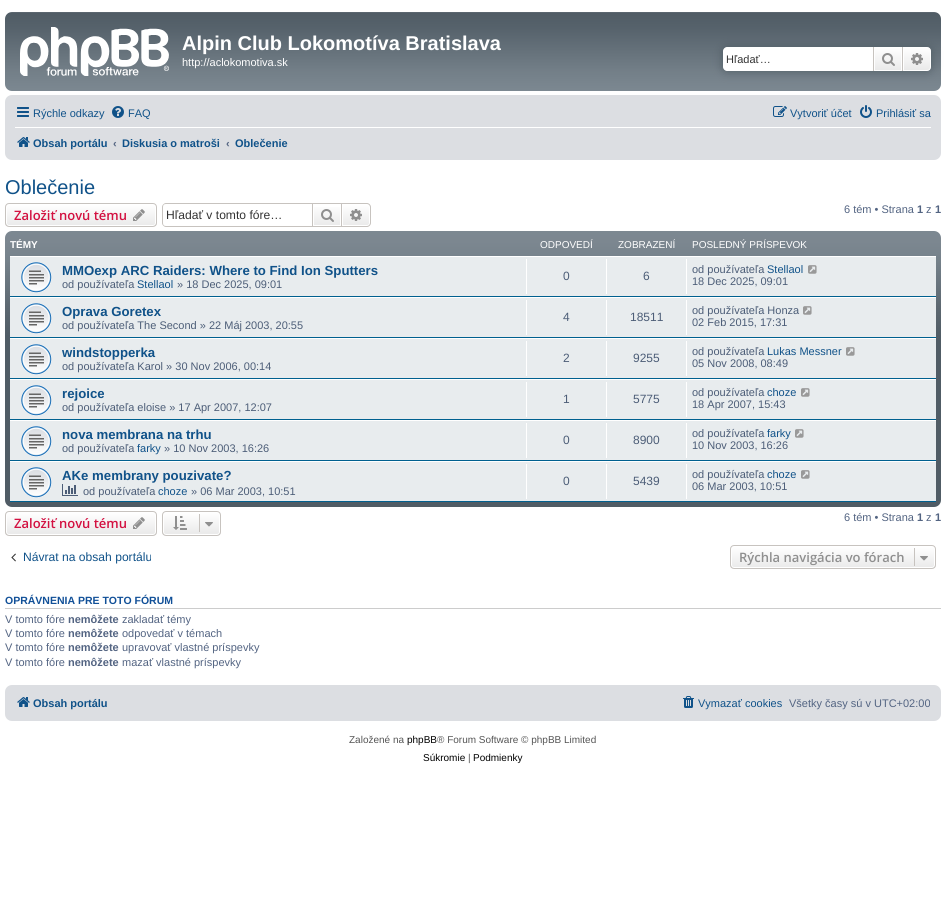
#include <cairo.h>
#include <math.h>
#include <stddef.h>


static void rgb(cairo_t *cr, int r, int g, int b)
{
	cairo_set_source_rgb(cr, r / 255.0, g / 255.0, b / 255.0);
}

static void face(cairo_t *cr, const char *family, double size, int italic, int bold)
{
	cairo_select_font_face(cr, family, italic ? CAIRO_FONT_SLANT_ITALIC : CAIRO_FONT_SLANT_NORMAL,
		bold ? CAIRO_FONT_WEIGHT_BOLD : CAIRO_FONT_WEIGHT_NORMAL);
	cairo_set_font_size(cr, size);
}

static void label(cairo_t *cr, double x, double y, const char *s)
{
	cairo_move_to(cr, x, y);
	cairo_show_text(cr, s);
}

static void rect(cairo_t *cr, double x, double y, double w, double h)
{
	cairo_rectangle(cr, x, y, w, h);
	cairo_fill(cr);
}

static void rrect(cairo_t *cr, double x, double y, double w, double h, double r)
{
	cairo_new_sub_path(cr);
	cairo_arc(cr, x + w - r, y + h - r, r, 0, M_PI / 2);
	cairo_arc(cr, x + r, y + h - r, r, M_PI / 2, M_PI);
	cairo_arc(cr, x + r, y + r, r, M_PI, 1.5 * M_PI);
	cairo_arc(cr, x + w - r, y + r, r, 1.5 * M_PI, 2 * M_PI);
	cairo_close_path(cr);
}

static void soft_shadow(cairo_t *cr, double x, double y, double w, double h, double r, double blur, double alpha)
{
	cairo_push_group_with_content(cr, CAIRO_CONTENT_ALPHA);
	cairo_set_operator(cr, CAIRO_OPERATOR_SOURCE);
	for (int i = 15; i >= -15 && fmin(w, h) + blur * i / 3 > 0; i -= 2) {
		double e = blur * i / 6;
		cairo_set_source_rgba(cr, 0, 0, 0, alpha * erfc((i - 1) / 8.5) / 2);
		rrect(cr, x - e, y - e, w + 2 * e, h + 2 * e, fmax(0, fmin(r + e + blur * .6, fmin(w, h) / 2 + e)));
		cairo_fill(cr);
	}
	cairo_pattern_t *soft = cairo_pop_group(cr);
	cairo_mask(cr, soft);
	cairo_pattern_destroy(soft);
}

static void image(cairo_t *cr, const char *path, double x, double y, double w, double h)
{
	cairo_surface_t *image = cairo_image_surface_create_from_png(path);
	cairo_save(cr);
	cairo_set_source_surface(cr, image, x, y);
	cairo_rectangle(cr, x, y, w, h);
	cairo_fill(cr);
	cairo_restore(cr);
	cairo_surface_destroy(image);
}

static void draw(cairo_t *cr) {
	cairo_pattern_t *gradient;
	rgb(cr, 255, 255, 255);
	cairo_paint(cr);
	gradient = cairo_pattern_create_linear(473, 12, 473, 91);
	cairo_pattern_add_color_stop_rgba(gradient, 0, 0.431, 0.467, 0.498, 1);
	cairo_pattern_add_color_stop_rgba(gradient, 0.01, 0.314, 0.361, 0.396, 1);
	cairo_pattern_add_color_stop_rgba(gradient, 0.2, 0.337, 0.384, 0.42, 1);
	cairo_pattern_add_color_stop_rgba(gradient, 0.75, 0.451, 0.498, 0.533, 1);
	cairo_pattern_add_color_stop_rgba(gradient, 1, 0.486, 0.533, 0.569, 1);
	cairo_set_source(cr, gradient);
	cairo_pattern_destroy(gradient);
	rrect(cr, 5, 12, 936, 79, 7);
	cairo_fill(cr);
	image(cr, "image0.png", 20, 27, 149, 49);
	face(cr, "Liberation Sans", 20, 0, 1);
	rgb(cr, 255, 255, 255);
	label(cr, 182, 50, "Alpin Club Lokomotíva Bratislava");
	face(cr, "Liberation Sans", 11, 0, 0);
	label(cr, 182, 66, "http://aclokomotiva.sk");
	rgb(cr, 80, 92, 101);
	soft_shadow(cr, 723, 47, 208, 24, 4, 5, 1);
	rgb(cr, 255, 255, 255);
	cairo_new_path(cr);
	cairo_move_to(cr, 727, 47);
	cairo_line_to(cr, 873, 47);
	cairo_line_to(cr, 873, 71);
	cairo_line_to(cr, 727, 71);
	cairo_curve_to(cr, 725, 71, 723, 69, 723, 67);
	cairo_line_to(cr, 723, 51);
	cairo_curve_to(cr, 723, 49, 725, 47, 727, 47);
	cairo_close_path(cr);
	cairo_fill(cr);
	rgb(cr, 51, 51, 51);
	label(cr, 726, 63, "Hľadať…");
	gradient = cairo_pattern_create_linear(888, 47, 888, 71);
	cairo_pattern_add_color_stop_rgba(gradient, 0, 1, 1, 1, 1);
	cairo_pattern_add_color_stop_rgba(gradient, 1, 0.914, 0.914, 0.914, 1);
	cairo_set_source(cr, gradient);
	cairo_pattern_destroy(gradient);
	rect(cr, 875, 48, 26, 22);
	cairo_rectangle(cr, 874.5, 47.5, 27, 23);
	rgb(cr, 255, 255, 255);
	cairo_set_line_width(cr, 1);
	cairo_stroke(cr);
	rgb(cr, 199, 195, 191);
	rect(cr, 902, 47, 1, 24);
	rect(cr, 873, 47, 1, 24);
	image(cr, "image1.png", 882, 53, 13, 13);
	gradient = cairo_pattern_create_linear(917, 47, 917, 71);
	cairo_pattern_add_color_stop_rgba(gradient, 0, 1, 1, 1, 1);
	cairo_pattern_add_color_stop_rgba(gradient, 1, 0.914, 0.914, 0.914, 1);
	cairo_set_source(cr, gradient);
	cairo_pattern_destroy(gradient);
	cairo_new_path(cr);
	cairo_move_to(cr, 903.5, 47.5);
	cairo_line_to(cr, 927, 47.5);
	cairo_curve_to(cr, 929, 47.5, 930.5, 49, 930.5, 51);
	cairo_line_to(cr, 930.5, 67);
	cairo_curve_to(cr, 930.5, 69, 929, 70.5, 927, 70.5);
	cairo_line_to(cr, 903.5, 70.5);
	cairo_close_path(cr);
	cairo_fill_preserve(cr);
	rgb(cr, 255, 255, 255);
	cairo_stroke(cr);
	image(cr, "image2.png", 911, 53, 12, 12);
	rgb(cr, 220, 222, 226);
	rrect(cr, 5, 95, 936, 65, 7);
	cairo_fill(cr);
	image(cr, "image3.png", 17, 107, 12, 10);
	rgb(cr, 16, 82, 137);
	label(cr, 33, 117, "Rýchle odkazy");
	image(cr, "image4.png", 112, 106, 12, 12);
	label(cr, 128, 117, "FAQ");
	image(cr, "image5.png", 773, 106, 14, 11);
	label(cr, 790, 117, "Vytvoriť účet");
	image(cr, "image6.png", 860, 105, 12, 13);
	label(cr, 876, 117, "Prihlásiť sa");
	rgb(cr, 255, 255, 255);
	rect(cr, 15, 127, 916, 1);
	image(cr, "image7.png", 17, 137, 13, 10);
	face(cr, "Liberation Sans", 11, 0, 1);
	rgb(cr, 16, 82, 137);
	label(cr, 33, 147, "Obsah portálu");
	rgb(cr, 83, 100, 130);
	label(cr, 113, 147, "‹");
	rgb(cr, 16, 82, 137);
	label(cr, 122, 147, "Diskusia o matroši");
	rgb(cr, 83, 100, 130);
	label(cr, 226, 147, "‹");
	rgb(cr, 16, 82, 137);
	label(cr, 235, 147, "Oblečenie");
	face(cr, "Liberation Sans", 20, 0, 0);
	label(cr, 5, 194, "Oblečenie");
	face(cr, "Liberation Sans", 11, 0, 0);
	rgb(cr, 83, 100, 130);
	label(cr, 844, 213, "6 tém • Strana");
	face(cr, "Liberation Sans", 11, 0, 1);
	label(cr, 917, 213, "1");
	face(cr, "Liberation Sans", 11, 0, 0);
	label(cr, 926, 213, "z");
	face(cr, "Liberation Sans", 11, 0, 1);
	label(cr, 935, 213, "1");
	cairo_save(cr);
	rrect(cr, 5, 203, 152, 24, 4);
	cairo_clip(cr);
	gradient = cairo_pattern_create_linear(81, 204, 81, 226);
	cairo_pattern_add_color_stop_rgba(gradient, 0, 1, 1, 1, 1);
	cairo_pattern_add_color_stop_rgba(gradient, 1, 0.914, 0.914, 0.914, 1);
	cairo_set_source(cr, gradient);
	cairo_pattern_destroy(gradient);
	rect(cr, 5, 204, 152, 22);
	cairo_restore(cr);
	rrect(cr, 6.5, 204.5, 149, 21, 2.5);
	rgb(cr, 255, 255, 255);
	cairo_stroke(cr);
	rrect(cr, 5.5, 203.5, 151, 23, 3.5);
	rgb(cr, 199, 195, 191);
	cairo_stroke(cr);
	face(cr, "Open Sans SemiBold", 13, 0, 0);
	rgb(cr, 211, 17, 65);
	label(cr, 14, 220, "Založiť novú tému");
	image(cr, "image8.png", 133, 209, 12, 12);
	rgb(cr, 199, 195, 191);
	cairo_set_fill_rule(cr, CAIRO_FILL_RULE_EVEN_ODD);
	cairo_new_path(cr);
	cairo_move_to(cr, 166, 203);
	cairo_line_to(cr, 312, 203);
	cairo_line_to(cr, 312, 227);
	cairo_line_to(cr, 166, 227);
	cairo_curve_to(cr, 164, 227, 162, 225, 162, 223);
	cairo_line_to(cr, 162, 207);
	cairo_curve_to(cr, 162, 205, 164, 203, 166, 203);
	cairo_close_path(cr);
	cairo_move_to(cr, 166, 204);
	cairo_line_to(cr, 312, 204);
	cairo_line_to(cr, 312, 226);
	cairo_line_to(cr, 166, 226);
	cairo_curve_to(cr, 164, 226, 163, 225, 163, 223);
	cairo_line_to(cr, 163, 207);
	cairo_curve_to(cr, 163, 205, 164, 204, 166, 204);
	cairo_close_path(cr);
	cairo_fill(cr);
	face(cr, "Liberation Sans", 12.1, 0, 0);
	rgb(cr, 51, 51, 51);
	label(cr, 166, 219, "Hľadať v tomto fóre…");
	gradient = cairo_pattern_create_linear(327, 204, 327, 226);
	cairo_pattern_add_color_stop_rgba(gradient, 0, 1, 1, 1, 1);
	cairo_pattern_add_color_stop_rgba(gradient, 1, 0.914, 0.914, 0.914, 1);
	cairo_set_source(cr, gradient);
	cairo_pattern_destroy(gradient);
	rect(cr, 314, 207, 26, 18);
	cairo_rectangle(cr, 312.5, 203.5, 29, 23);
	rgb(cr, 199, 195, 191);
	cairo_stroke(cr);
	image(cr, "image9.png", 321, 209, 13, 13);
	gradient = cairo_pattern_create_linear(356, 204, 356, 226);
	cairo_pattern_add_color_stop_rgba(gradient, 0, 1, 1, 1, 1);
	cairo_pattern_add_color_stop_rgba(gradient, 1, 0.914, 0.914, 0.914, 1);
	cairo_set_source(cr, gradient);
	cairo_pattern_destroy(gradient);
	cairo_new_path(cr);
	cairo_move_to(cr, 342.5, 204.5);
	cairo_line_to(cr, 367, 204.5);
	cairo_curve_to(cr, 368.5, 204.5, 369.5, 205.5, 369.5, 207);
	cairo_line_to(cr, 369.5, 223);
	cairo_curve_to(cr, 369.5, 224.5, 368.5, 225.5, 367, 225.5);
	cairo_line_to(cr, 342.5, 225.5);
	cairo_close_path(cr);
	cairo_fill_preserve(cr);
	rgb(cr, 255, 255, 255);
	cairo_stroke(cr);
	rgb(cr, 199, 195, 191);
	cairo_new_path(cr);
	cairo_move_to(cr, 342, 203);
	cairo_line_to(cr, 367, 203);
	cairo_curve_to(cr, 369, 203, 371, 205, 371, 207);
	cairo_line_to(cr, 371, 223);
	cairo_curve_to(cr, 371, 225, 369, 227, 367, 227);
	cairo_line_to(cr, 342, 227);
	cairo_close_path(cr);
	cairo_move_to(cr, 342, 204);
	cairo_line_to(cr, 367, 204);
	cairo_curve_to(cr, 368.5, 204, 370, 205.5, 370, 207);
	cairo_line_to(cr, 370, 223);
	cairo_curve_to(cr, 370, 224.5, 368.5, 226, 367, 226);
	cairo_line_to(cr, 342, 226);
	cairo_close_path(cr);
	cairo_fill(cr);
	image(cr, "image10.png", 350, 209, 12, 12);
	gradient = cairo_pattern_create_linear(473, 231, 473, 507);
	cairo_pattern_add_color_stop_rgba(gradient, 0, 0.486, 0.533, 0.569, 1);
	cairo_pattern_add_color_stop_rgba(gradient, 0.04, 0.486, 0.529, 0.565, 1);
	cairo_pattern_add_color_stop_rgba(gradient, 0.1, 0.463, 0.51, 0.545, 1);
	cairo_pattern_add_color_stop_rgba(gradient, 0.29, 0.357, 0.4, 0.435, 1);
	cairo_pattern_add_color_stop_rgba(gradient, 0.38, 0.314, 0.361, 0.396, 1);
	cairo_pattern_add_color_stop_rgba(gradient, 1, 0.314, 0.361, 0.396, 1);
	cairo_set_source(cr, gradient);
	cairo_pattern_destroy(gradient);
	rrect(cr, 5, 231, 936, 276, 7);
	cairo_fill(cr);
	face(cr, "Liberation Sans", 10, 0, 1);
	rgb(cr, 255, 255, 255);
	label(cr, 10, 248, "TÉMY");
	face(cr, "Liberation Sans", 10, 0, 0);
	label(cr, 540, 248, "ODPOVEDÍ");
	label(cr, 618, 248, "ZOBRAZENÍ");
	label(cr, 692, 248, "POSLEDNÝ PRÍSPEVOK");
	rgb(cr, 232, 236, 238);
	rect(cr, 10, 257, 926, 39);
	rgb(cr, 255, 255, 255);
	rect(cr, 10, 256, 926, 1);
	rgb(cr, 0, 96, 143);
	rect(cr, 10, 296, 926, 1);
	image(cr, "image11.png", 21, 262, 31, 31);
	face(cr, "Liberation Sans", 13.2, 0, 1);
	rgb(cr, 16, 82, 137);
	label(cr, 62, 275, "MMOexp ARC Raiders: Where to Find Ion Sputters");
	face(cr, "Liberation Sans", 11, 0, 0);
	rgb(cr, 76, 93, 119);
	label(cr, 62, 288, "od používateľa");
	rgb(cr, 16, 82, 137);
	label(cr, 137, 288, "Stellaol");
	rgb(cr, 76, 93, 119);
	label(cr, 177, 288, "» 18 Dec 2025, 09:01");
	rgb(cr, 255, 255, 255);
	rect(cr, 526, 259, 1, 35);
	face(cr, "Liberation Sans", 12, 0, 0);
	rgb(cr, 76, 93, 119);
	label(cr, 563, 280, "0");
	rgb(cr, 255, 255, 255);
	rect(cr, 606, 259, 1, 35);
	rgb(cr, 76, 93, 119);
	label(cr, 643, 280, "6");
	rgb(cr, 255, 255, 255);
	rect(cr, 686, 259, 1, 35);
	face(cr, "Liberation Sans", 11, 0, 0);
	rgb(cr, 76, 93, 119);
	label(cr, 692, 273, "od používateľa");
	rgb(cr, 16, 82, 137);
	label(cr, 767, 273, "Stellaol");
	image(cr, "image12.png", 808, 265, 9, 9);
	rgb(cr, 76, 93, 119);
	label(cr, 692, 285, "18 Dec 2025, 09:01");
	rgb(cr, 232, 236, 238);
	rect(cr, 10, 298, 926, 39);
	rgb(cr, 255, 255, 255);
	rect(cr, 10, 297, 926, 1);
	rgb(cr, 0, 96, 143);
	rect(cr, 10, 337, 926, 1);
	image(cr, "image11.png", 21, 303, 31, 31);
	face(cr, "Liberation Sans", 13.2, 0, 1);
	rgb(cr, 16, 82, 137);
	label(cr, 62, 316, "Oprava Goretex");
	face(cr, "Liberation Sans", 11, 0, 0);
	rgb(cr, 76, 93, 119);
	label(cr, 62, 329, "od používateľa The Second » 22 Máj 2003, 20:55");
	rgb(cr, 255, 255, 255);
	rect(cr, 526, 300, 1, 35);
	face(cr, "Liberation Sans", 12, 0, 0);
	rgb(cr, 76, 93, 119);
	label(cr, 563, 321, "4");
	rgb(cr, 255, 255, 255);
	rect(cr, 606, 300, 1, 35);
	rgb(cr, 76, 93, 119);
	label(cr, 630, 321, "18511");
	rgb(cr, 255, 255, 255);
	rect(cr, 686, 300, 1, 35);
	face(cr, "Liberation Sans", 11, 0, 0);
	rgb(cr, 76, 93, 119);
	label(cr, 692, 314, "od používateľa Honza");
	image(cr, "image12.png", 803, 306, 9, 9);
	label(cr, 692, 326, "02 Feb 2015, 17:31");
	rgb(cr, 232, 236, 238);
	rect(cr, 10, 339, 926, 39);
	rgb(cr, 255, 255, 255);
	rect(cr, 10, 338, 926, 1);
	rgb(cr, 0, 96, 143);
	rect(cr, 10, 378, 926, 1);
	image(cr, "image11.png", 21, 344, 31, 31);
	face(cr, "Liberation Sans", 13.2, 0, 1);
	rgb(cr, 16, 82, 137);
	label(cr, 62, 357, "windstopperka");
	face(cr, "Liberation Sans", 11, 0, 0);
	rgb(cr, 76, 93, 119);
	label(cr, 62, 370, "od používateľa Karol » 30 Nov 2006, 00:14");
	rgb(cr, 255, 255, 255);
	rect(cr, 526, 341, 1, 35);
	face(cr, "Liberation Sans", 12, 0, 0);
	rgb(cr, 76, 93, 119);
	label(cr, 563, 362, "2");
	rgb(cr, 255, 255, 255);
	rect(cr, 606, 341, 1, 35);
	rgb(cr, 76, 93, 119);
	label(cr, 633, 362, "9255");
	rgb(cr, 255, 255, 255);
	rect(cr, 686, 341, 1, 35);
	face(cr, "Liberation Sans", 11, 0, 0);
	rgb(cr, 76, 93, 119);
	label(cr, 692, 355, "od používateľa");
	rgb(cr, 16, 82, 137);
	label(cr, 767, 355, "Lukas Messner");
	image(cr, "image12.png", 846, 347, 9, 9);
	rgb(cr, 76, 93, 119);
	label(cr, 692, 367, "05 Nov 2008, 08:49");
	rgb(cr, 232, 236, 238);
	rect(cr, 10, 380, 926, 39);
	rgb(cr, 255, 255, 255);
	rect(cr, 10, 379, 926, 1);
	rgb(cr, 0, 96, 143);
	rect(cr, 10, 419, 926, 1);
	image(cr, "image11.png", 21, 385, 31, 31);
	face(cr, "Liberation Sans", 13.2, 0, 1);
	rgb(cr, 16, 82, 137);
	label(cr, 62, 398, "rejoice");
	face(cr, "Liberation Sans", 11, 0, 0);
	rgb(cr, 76, 93, 119);
	label(cr, 62, 411, "od používateľa eloise » 17 Apr 2007, 12:07");
	rgb(cr, 255, 255, 255);
	rect(cr, 526, 382, 1, 35);
	face(cr, "Liberation Sans", 12, 0, 0);
	rgb(cr, 76, 93, 119);
	label(cr, 563, 403, "1");
	rgb(cr, 255, 255, 255);
	rect(cr, 606, 382, 1, 35);
	rgb(cr, 76, 93, 119);
	label(cr, 633, 403, "5775");
	rgb(cr, 255, 255, 255);
	rect(cr, 686, 382, 1, 35);
	face(cr, "Liberation Sans", 11, 0, 0);
	rgb(cr, 76, 93, 119);
	label(cr, 692, 396, "od používateľa");
	rgb(cr, 16, 82, 137);
	label(cr, 767, 396, "choze");
	image(cr, "image12.png", 801, 388, 9, 9);
	rgb(cr, 76, 93, 119);
	label(cr, 692, 408, "18 Apr 2007, 15:43");
	rgb(cr, 232, 236, 238);
	rect(cr, 10, 421, 926, 39);
	rgb(cr, 255, 255, 255);
	rect(cr, 10, 420, 926, 1);
	rgb(cr, 0, 96, 143);
	rect(cr, 10, 460, 926, 1);
	image(cr, "image11.png", 21, 426, 31, 31);
	face(cr, "Liberation Sans", 13.2, 0, 1);
	rgb(cr, 16, 82, 137);
	label(cr, 62, 439, "nova membrana na trhu");
	face(cr, "Liberation Sans", 11, 0, 0);
	rgb(cr, 76, 93, 119);
	label(cr, 62, 452, "od používateľa");
	rgb(cr, 16, 82, 137);
	label(cr, 137, 452, "farky");
	rgb(cr, 76, 93, 119);
	label(cr, 164, 452, "» 10 Nov 2003, 16:26");
	rgb(cr, 255, 255, 255);
	rect(cr, 526, 423, 1, 35);
	face(cr, "Liberation Sans", 12, 0, 0);
	rgb(cr, 76, 93, 119);
	label(cr, 563, 444, "0");
	rgb(cr, 255, 255, 255);
	rect(cr, 606, 423, 1, 35);
	rgb(cr, 76, 93, 119);
	label(cr, 633, 444, "8900");
	rgb(cr, 255, 255, 255);
	rect(cr, 686, 423, 1, 35);
	face(cr, "Liberation Sans", 11, 0, 0);
	rgb(cr, 76, 93, 119);
	label(cr, 692, 437, "od používateľa");
	rgb(cr, 16, 82, 137);
	label(cr, 767, 437, "farky");
	image(cr, "image12.png", 795, 429, 9, 9);
	rgb(cr, 76, 93, 119);
	label(cr, 692, 449, "10 Nov 2003, 16:26");
	rgb(cr, 232, 236, 238);
	rect(cr, 10, 462, 926, 39);
	rgb(cr, 255, 255, 255);
	rect(cr, 10, 461, 926, 1);
	rgb(cr, 0, 96, 143);
	rect(cr, 10, 501, 926, 1);
	image(cr, "image11.png", 21, 467, 31, 31);
	face(cr, "Liberation Sans", 13.2, 0, 1);
	rgb(cr, 16, 82, 137);
	label(cr, 62, 480, "AKe membrany pouzivate?");
	image(cr, "image13.png", 62, 484, 16, 12);
	face(cr, "Liberation Sans", 11, 0, 0);
	rgb(cr, 76, 93, 119);
	label(cr, 83, 495, "od používateľa");
	rgb(cr, 16, 82, 137);
	label(cr, 158, 495, "choze");
	rgb(cr, 76, 93, 119);
	label(cr, 191, 495, "» 06 Mar 2003, 10:51");
	rgb(cr, 255, 255, 255);
	rect(cr, 526, 464, 1, 35);
	face(cr, "Liberation Sans", 12, 0, 0);
	rgb(cr, 76, 93, 119);
	label(cr, 563, 485, "0");
	rgb(cr, 255, 255, 255);
	rect(cr, 606, 464, 1, 35);
	rgb(cr, 76, 93, 119);
	label(cr, 633, 485, "5439");
	rgb(cr, 255, 255, 255);
	rect(cr, 686, 464, 1, 35);
	face(cr, "Liberation Sans", 11, 0, 0);
	rgb(cr, 76, 93, 119);
	label(cr, 692, 478, "od používateľa");
	rgb(cr, 16, 82, 137);
	label(cr, 767, 478, "choze");
	image(cr, "image12.png", 801, 470, 9, 9);
	rgb(cr, 76, 93, 119);
	label(cr, 692, 490, "06 Mar 2003, 10:51");
	cairo_save(cr);
	cairo_set_fill_rule(cr, CAIRO_FILL_RULE_WINDING);
	rrect(cr, 162, 511, 59, 25, 4);
	cairo_clip(cr);
	gradient = cairo_pattern_create_linear(192, 512, 192, 535);
	cairo_pattern_add_color_stop_rgba(gradient, 0, 1, 1, 1, 1);
	cairo_pattern_add_color_stop_rgba(gradient, 1, 0.914, 0.914, 0.914, 1);
	cairo_set_source(cr, gradient);
	cairo_pattern_destroy(gradient);
	rect(cr, 162, 512, 59, 23);
	cairo_restore(cr);
	rrect(cr, 163.5, 512.5, 56, 22, 2.5);
	rgb(cr, 255, 255, 255);
	cairo_stroke(cr);
	rrect(cr, 162.5, 511.5, 58, 24, 3.5);
	rgb(cr, 199, 195, 191);
	cairo_stroke(cr);
	image(cr, "image14.png", 173, 516, 14, 14);
	rect(cr, 199, 514, 1, 18);
	image(cr, "image15.png", 205, 522, 8, 5);
	rgb(cr, 83, 100, 130);
	label(cr, 844, 521, "6 tém • Strana");
	face(cr, "Liberation Sans", 11, 0, 1);
	label(cr, 917, 521, "1");
	face(cr, "Liberation Sans", 11, 0, 0);
	label(cr, 926, 521, "z");
	face(cr, "Liberation Sans", 11, 0, 1);
	label(cr, 935, 521, "1");
	cairo_save(cr);
	cairo_set_fill_rule(cr, CAIRO_FILL_RULE_WINDING);
	rrect(cr, 5, 511, 152, 25, 4);
	cairo_clip(cr);
	gradient = cairo_pattern_create_linear(81, 512, 81, 535);
	cairo_pattern_add_color_stop_rgba(gradient, 0, 1, 1, 1, 1);
	cairo_pattern_add_color_stop_rgba(gradient, 1, 0.914, 0.914, 0.914, 1);
	cairo_set_source(cr, gradient);
	cairo_pattern_destroy(gradient);
	rect(cr, 5, 512, 152, 23);
	cairo_restore(cr);
	rrect(cr, 6.5, 512.5, 149, 22, 2.5);
	rgb(cr, 255, 255, 255);
	cairo_stroke(cr);
	rrect(cr, 5.5, 511.5, 151, 24, 3.5);
	rgb(cr, 199, 195, 191);
	cairo_stroke(cr);
	face(cr, "Open Sans SemiBold", 13, 0, 0);
	rgb(cr, 211, 17, 65);
	label(cr, 14, 528, "Založiť novú tému");
	image(cr, "image8.png", 133, 517, 12, 12);
	image(cr, "image16.png", 11, 553, 5, 9);
	face(cr, "Liberation Sans", 12.1, 0, 0);
	rgb(cr, 16, 82, 137);
	label(cr, 23, 561, "Návrat na obsah portálu");
	cairo_save(cr);
	cairo_set_fill_rule(cr, CAIRO_FILL_RULE_WINDING);
	rrect(cr, 730, 545, 206, 24, 4);
	cairo_clip(cr);
	gradient = cairo_pattern_create_linear(833, 546, 833, 568);
	cairo_pattern_add_color_stop_rgba(gradient, 0, 1, 1, 1, 1);
	cairo_pattern_add_color_stop_rgba(gradient, 1, 0.914, 0.914, 0.914, 1);
	cairo_set_source(cr, gradient);
	cairo_pattern_destroy(gradient);
	rect(cr, 730, 546, 206, 22);
	cairo_restore(cr);
	rrect(cr, 731.5, 546.5, 203, 21, 2.5);
	rgb(cr, 255, 255, 255);
	cairo_stroke(cr);
	rrect(cr, 730.5, 545.5, 205, 23, 3.5);
	rgb(cr, 199, 195, 191);
	cairo_stroke(cr);
	face(cr, "Open Sans SemiBold", 13, 0, 0);
	rgb(cr, 143, 143, 143);
	label(cr, 739, 562, "Rýchla navigácia vo fórach");
	rgb(cr, 199, 195, 191);
	rect(cr, 914, 548, 1, 18);
	image(cr, "image15.png", 920, 556, 8, 5);
	rgb(cr, 204, 204, 204);
	rect(cr, 5, 608, 936, 1);
	face(cr, "Liberation Sans", 10.5, 0, 1);
	rgb(cr, 17, 80, 152);
	label(cr, 5, 604, "OPRÁVNENIA PRE TOTO FÓRUM");
	face(cr, "Liberation Sans", 11, 0, 0);
	rgb(cr, 83, 100, 130);
	label(cr, 5, 623, "V tomto fóre");
	face(cr, "Liberation Sans", 11, 0, 1);
	label(cr, 68, 623, "nemôžete");
	face(cr, "Liberation Sans", 11, 0, 0);
	label(cr, 122, 623, "zakladať témy");
	label(cr, 5, 637, "V tomto fóre");
	face(cr, "Liberation Sans", 11, 0, 1);
	label(cr, 68, 637, "nemôžete");
	face(cr, "Liberation Sans", 11, 0, 0);
	label(cr, 122, 637, "odpovedať v témach");
	label(cr, 5, 651, "V tomto fóre");
	face(cr, "Liberation Sans", 11, 0, 1);
	label(cr, 68, 651, "nemôžete");
	face(cr, "Liberation Sans", 11, 0, 0);
	label(cr, 122, 651, "upravovať vlastné príspevky");
	label(cr, 5, 666, "V tomto fóre");
	face(cr, "Liberation Sans", 11, 0, 1);
	label(cr, 68, 666, "nemôžete");
	face(cr, "Liberation Sans", 11, 0, 0);
	label(cr, 122, 666, "mazať vlastné príspevky");
	rgb(cr, 220, 222, 226);
	rrect(cr, 5, 685, 936, 36, 7);
	cairo_fill(cr);
	image(cr, "image7.png", 17, 697, 13, 10);
	face(cr, "Liberation Sans", 11, 0, 1);
	rgb(cr, 16, 82, 137);
	label(cr, 33, 707, "Obsah portálu");
	image(cr, "image17.png", 683, 696, 11, 12);
	face(cr, "Liberation Sans", 11, 0, 0);
	label(cr, 698, 707, "Vymazať cookies");
	rgb(cr, 83, 100, 130);
	label(cr, 789, 707, "Všetky časy sú v UTC+02:00");
	face(cr, "Liberation Sans", 10, 0, 0);
	rgb(cr, 85, 85, 85);
	label(cr, 349, 743, "Založené na");
	rgb(cr, 0, 0, 0);
	label(cr, 407, 743, "phpBB");
	rgb(cr, 85, 85, 85);
	label(cr, 437, 743, "® Forum Software © phpBB Limited");
	rgb(cr, 0, 0, 0);
	label(cr, 423, 761, "Súkromie");
	rgb(cr, 85, 85, 85);
	label(cr, 468, 761, "|");
	rgb(cr, 0, 0, 0);
	label(cr, 473, 761, "Podmienky");
}

int main(void) {
	cairo_surface_t *surface = cairo_image_surface_create(CAIRO_FORMAT_RGB24, 946, 905);
	cairo_t *cr = cairo_create(surface);
	cairo_font_options_t *options = cairo_font_options_create();
	cairo_font_options_set_hint_metrics(options, CAIRO_HINT_METRICS_OFF);
	cairo_font_options_set_hint_style(options, CAIRO_HINT_STYLE_NONE);
	cairo_set_font_options(cr, options);
	cairo_set_miter_limit(cr, 4);
	draw(cr);
	cairo_surface_write_to_png(surface, "render.png");
	cairo_font_options_destroy(options);
	cairo_destroy(cr);
	cairo_surface_destroy(surface);
	return 0;
}
